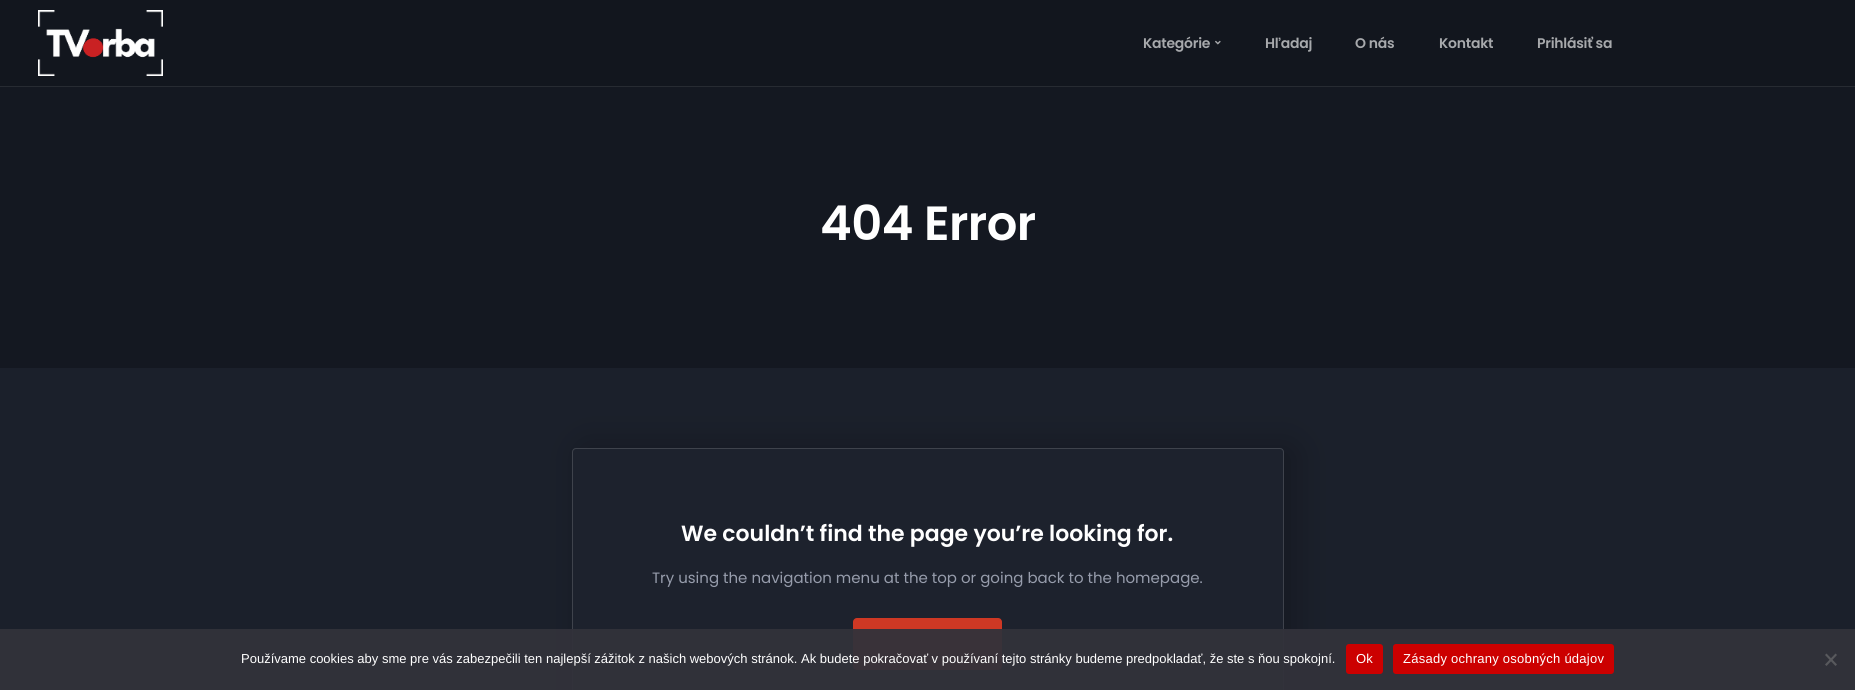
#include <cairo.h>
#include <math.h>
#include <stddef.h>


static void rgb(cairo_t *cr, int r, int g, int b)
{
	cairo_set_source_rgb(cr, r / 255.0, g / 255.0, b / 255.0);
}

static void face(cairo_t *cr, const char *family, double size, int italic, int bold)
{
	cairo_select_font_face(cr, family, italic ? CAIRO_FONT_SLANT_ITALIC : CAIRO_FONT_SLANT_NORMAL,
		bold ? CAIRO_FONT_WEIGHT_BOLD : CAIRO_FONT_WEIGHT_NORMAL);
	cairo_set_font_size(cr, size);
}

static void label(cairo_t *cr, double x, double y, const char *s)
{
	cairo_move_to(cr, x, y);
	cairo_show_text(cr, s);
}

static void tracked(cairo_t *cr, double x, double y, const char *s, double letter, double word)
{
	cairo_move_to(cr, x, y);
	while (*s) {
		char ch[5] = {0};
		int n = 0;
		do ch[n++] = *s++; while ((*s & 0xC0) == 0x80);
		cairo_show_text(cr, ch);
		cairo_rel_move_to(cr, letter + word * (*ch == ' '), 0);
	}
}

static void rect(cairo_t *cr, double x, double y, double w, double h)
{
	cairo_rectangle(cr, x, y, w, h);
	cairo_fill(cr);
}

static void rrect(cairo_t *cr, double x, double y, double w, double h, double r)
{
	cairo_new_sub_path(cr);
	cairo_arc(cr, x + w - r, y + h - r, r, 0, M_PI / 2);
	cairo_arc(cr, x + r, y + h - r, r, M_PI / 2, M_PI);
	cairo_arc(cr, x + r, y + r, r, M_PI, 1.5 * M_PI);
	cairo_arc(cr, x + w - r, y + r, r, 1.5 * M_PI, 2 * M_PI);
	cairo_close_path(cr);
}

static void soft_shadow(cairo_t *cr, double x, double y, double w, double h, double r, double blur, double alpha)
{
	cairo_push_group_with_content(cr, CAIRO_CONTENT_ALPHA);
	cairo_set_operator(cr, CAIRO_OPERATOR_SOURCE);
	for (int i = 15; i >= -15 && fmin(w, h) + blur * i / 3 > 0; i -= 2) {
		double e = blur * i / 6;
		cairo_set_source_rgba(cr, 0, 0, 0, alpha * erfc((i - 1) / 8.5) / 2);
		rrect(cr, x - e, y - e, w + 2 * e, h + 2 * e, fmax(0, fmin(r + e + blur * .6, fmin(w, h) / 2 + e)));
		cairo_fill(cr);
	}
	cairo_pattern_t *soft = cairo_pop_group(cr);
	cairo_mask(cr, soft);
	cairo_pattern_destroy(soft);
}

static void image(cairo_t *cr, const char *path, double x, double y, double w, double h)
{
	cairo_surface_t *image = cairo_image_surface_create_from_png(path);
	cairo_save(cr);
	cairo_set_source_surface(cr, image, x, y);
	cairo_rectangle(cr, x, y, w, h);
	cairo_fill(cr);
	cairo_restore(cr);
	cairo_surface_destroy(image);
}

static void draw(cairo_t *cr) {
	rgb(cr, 27, 32, 43);
	cairo_paint(cr);
	rgb(cr, 18, 22, 30);
	rect(cr, 0, 0, 1855, 86);
	rgb(cr, 39, 43, 50);
	rect(cr, 0, 86, 1855, 1);
	image(cr, "image0.png", 38, 10, 125, 66);
	face(cr, "Poppins SemiBold", 14, 0, 0);
	rgb(cr, 167, 169, 172);
	tracked(cr, 1143, 48, "Kategórie", -0.25, 0);
	image(cr, "image1.png", 1215, 40, 6, 5);
	tracked(cr, 1265, 48, "Hľadaj", -0.25, 0);
	tracked(cr, 1355, 48, "O nás", -0.25, 0);
	tracked(cr, 1439, 48, "Kontakt", -0.25, 0);
	tracked(cr, 1537, 48, "Prihlásiť sa", -0.25, 0);
	rgb(cr, 20, 24, 33);
	rect(cr, 0, 87, 1855, 281);
	face(cr, "Poppins SemiBold", 48, 0, 0);
	rgb(cr, 255, 255, 255);
	tracked(cr, 820, 240, "404 Error", -0.5, 0);
	rgb(cr, 0, 0, 0);
	soft_shadow(cr, 582, 448, 712, 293, 4, 17.5, 0.25);
	rgb(cr, 29, 34, 45);
	rrect(cr, 572.5, 448.5, 711, 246, 3.5);
	cairo_fill_preserve(cr);
	rgb(cr, 63, 67, 76);
	cairo_set_line_width(cr, 1);
	cairo_stroke(cr);
	face(cr, "Poppins SemiBold", 22, 0, 0);
	rgb(cr, 255, 255, 255);
	label(cr, 681, 541, "We couldn’t find the page you’re looking for.");
	face(cr, "Poppins", 15, 0, 0);
	rgb(cr, 151, 157, 172);
	label(cr, 652, 583, "Try using the navigation menu at the top or going back to the homepage.");
	rgb(cr, 206, 56, 36);
	rrect(cr, 853, 618, 149, 52, 4);
	cairo_fill(cr);
	cairo_set_source_rgba(cr, 0.196, 0.196, 0.227, 0.95);
	rect(cr, 0, 629, 1855, 61);
	face(cr, "Liberation Sans", 13, 0, 0);
	rgb(cr, 255, 255, 255);
	label(cr, 241, 663, "Používame cookies aby sme pre vás zabezpečili ten najlepší zážitok z našich webových stránok. Ak budete pokračovať v používaní tejto stránky budeme predpokladať, že ste s ňou spokojní.");
	rgb(cr, 204, 0, 0);
	rrect(cr, 1346, 644, 37, 30, 3);
	cairo_fill(cr);
	rgb(cr, 255, 255, 255);
	tracked(cr, 1356, 663, "Ok", 0.25, 0);
	rgb(cr, 204, 0, 0);
	rrect(cr, 1393, 644, 221, 30, 3);
	cairo_fill(cr);
	rgb(cr, 255, 255, 255);
	tracked(cr, 1403, 663, "Zásady ochrany osobných údajov", 0.25, 0);
	rgb(cr, 88, 89, 93);
	cairo_new_path(cr);
	cairo_move_to(cr, 1835.5, 653.5);
	cairo_line_to(cr, 1837, 655);
	cairo_line_to(cr, 1826.5, 666);
	cairo_line_to(cr, 1825, 664.5);
	cairo_close_path(cr);
	cairo_fill(cr);
	cairo_new_path(cr);
	cairo_move_to(cr, 1825, 655);
	cairo_line_to(cr, 1826.5, 653.5);
	cairo_line_to(cr, 1837, 664.5);
	cairo_line_to(cr, 1835.5, 666);
	cairo_close_path(cr);
	cairo_fill(cr);
}

int main(void) {
	cairo_surface_t *surface = cairo_image_surface_create(CAIRO_FORMAT_RGB24, 1855, 690);
	cairo_t *cr = cairo_create(surface);
	cairo_font_options_t *options = cairo_font_options_create();
	cairo_font_options_set_hint_metrics(options, CAIRO_HINT_METRICS_OFF);
	cairo_font_options_set_hint_style(options, CAIRO_HINT_STYLE_NONE);
	cairo_set_font_options(cr, options);
	cairo_set_miter_limit(cr, 4);
	draw(cr);
	cairo_surface_write_to_png(surface, "render.png");
	cairo_font_options_destroy(options);
	cairo_destroy(cr);
	cairo_surface_destroy(surface);
	return 0;
}
